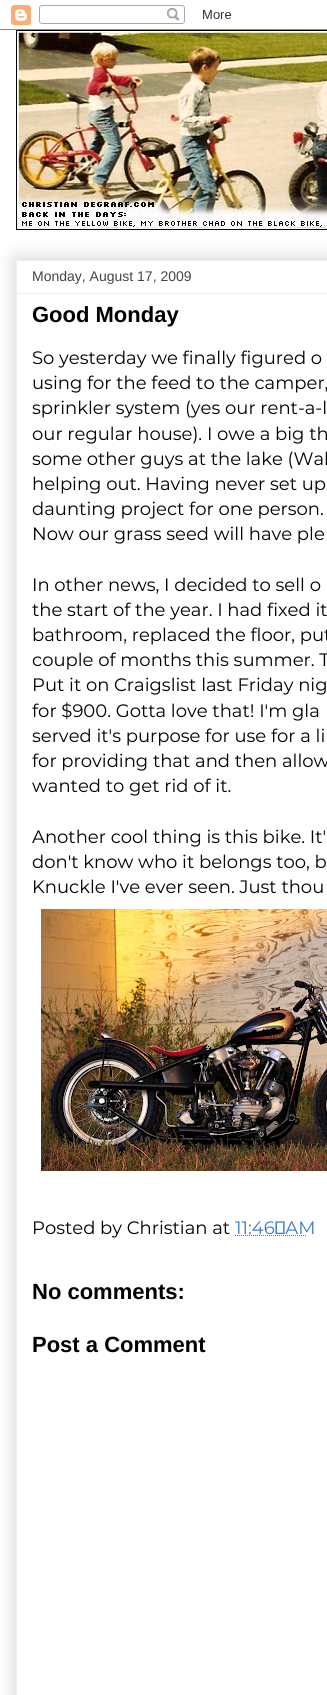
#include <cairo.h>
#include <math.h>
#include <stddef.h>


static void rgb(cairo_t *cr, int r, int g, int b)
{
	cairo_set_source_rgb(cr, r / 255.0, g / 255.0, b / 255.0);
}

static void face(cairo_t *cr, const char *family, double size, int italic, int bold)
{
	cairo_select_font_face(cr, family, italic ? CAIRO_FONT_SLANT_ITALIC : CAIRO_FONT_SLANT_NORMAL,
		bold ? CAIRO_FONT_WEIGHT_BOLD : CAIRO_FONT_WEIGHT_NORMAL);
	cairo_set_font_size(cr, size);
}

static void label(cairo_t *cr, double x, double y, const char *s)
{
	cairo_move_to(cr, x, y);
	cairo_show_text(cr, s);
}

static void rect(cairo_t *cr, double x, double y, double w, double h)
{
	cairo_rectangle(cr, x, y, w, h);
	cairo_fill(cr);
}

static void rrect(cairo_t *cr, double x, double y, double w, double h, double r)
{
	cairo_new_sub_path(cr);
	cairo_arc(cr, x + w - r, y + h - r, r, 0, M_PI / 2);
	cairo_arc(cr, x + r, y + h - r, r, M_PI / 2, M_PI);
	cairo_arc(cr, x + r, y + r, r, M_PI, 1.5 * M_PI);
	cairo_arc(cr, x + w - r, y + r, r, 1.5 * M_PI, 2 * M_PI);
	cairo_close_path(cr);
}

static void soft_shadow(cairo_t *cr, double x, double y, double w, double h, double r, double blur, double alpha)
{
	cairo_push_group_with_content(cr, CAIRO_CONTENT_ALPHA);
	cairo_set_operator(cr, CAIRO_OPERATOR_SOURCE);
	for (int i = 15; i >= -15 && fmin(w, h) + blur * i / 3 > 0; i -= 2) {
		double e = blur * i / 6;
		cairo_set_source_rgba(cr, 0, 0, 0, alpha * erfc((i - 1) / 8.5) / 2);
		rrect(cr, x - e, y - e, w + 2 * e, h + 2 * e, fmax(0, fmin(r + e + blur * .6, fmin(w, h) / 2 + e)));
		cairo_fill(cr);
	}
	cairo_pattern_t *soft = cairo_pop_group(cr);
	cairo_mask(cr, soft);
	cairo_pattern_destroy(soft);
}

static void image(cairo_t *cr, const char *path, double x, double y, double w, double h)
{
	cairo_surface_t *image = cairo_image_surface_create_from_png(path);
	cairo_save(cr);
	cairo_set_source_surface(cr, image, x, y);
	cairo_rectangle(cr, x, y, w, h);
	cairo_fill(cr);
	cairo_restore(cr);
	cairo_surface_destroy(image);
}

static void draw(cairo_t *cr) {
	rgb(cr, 255, 255, 255);
	cairo_paint(cr);
	image(cr, "image0.png", 0, 5, 327, 25);
	image(cr, "image1.png", 16, 30, 311, 200);
	cairo_save(cr);
	cairo_set_fill_rule(cr, CAIRO_FILL_RULE_EVEN_ODD);
	cairo_new_path(cr);
	cairo_move_to(cr, 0, 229);
	cairo_line_to(cr, 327, 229);
	cairo_line_to(cr, 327, 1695);
	cairo_line_to(cr, 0, 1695);
	cairo_close_path(cr);
	cairo_move_to(cr, 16, 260);
	cairo_line_to(cr, 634, 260);
	cairo_line_to(cr, 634, 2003);
	cairo_line_to(cr, 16, 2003);
	cairo_close_path(cr);
	cairo_clip(cr);
	rgb(cr, 0, 0, 0);
	soft_shadow(cr, 16, 260, 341, 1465, 0, 10, 0.2);
	cairo_restore(cr);
	cairo_rectangle(cr, 16.5, 260.5, 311, 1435);
	rgb(cr, 238, 238, 238);
	cairo_set_line_width(cr, 1);
	cairo_stroke(cr);
	face(cr, "Liberation Sans", 14, 0, 0);
	rgb(cr, 68, 68, 68);
	label(cr, 32, 281, "Monday, August 17, 2009");
	rgb(cr, 238, 238, 238);
	rect(cr, 17, 293, 310, 1);
	face(cr, "Liberation Sans", 22, 0, 1);
	rgb(cr, 0, 0, 0);
	label(cr, 32, 322, "Good Monday");
	face(cr, "Montserrat Thin", 18, 0, 0);
	label(cr, 32, 364, "So yesterday we finally figured o");
	label(cr, 32, 389, "using for the feed to the camper,");
	label(cr, 32, 414, "sprinkler system (yes our rent-a-l");
	label(cr, 32, 440, "our regular house). I owe a big th");
	label(cr, 32, 465, "some other guys at the lake (Wal");
	label(cr, 32, 490, "helping out. Having never set up");
	label(cr, 32, 515, "daunting project for one person.");
	label(cr, 32, 540, "Now our grass seed will have ple");
	label(cr, 32, 591, "In other news, I decided to sell o");
	label(cr, 32, 616, "the start of the year. I had fixed it");
	label(cr, 32, 641, "bathroom, replaced the floor, put");
	label(cr, 32, 666, "couple of months this summer. T");
	label(cr, 32, 691, "Put it on Craigslist last Friday nig");
	label(cr, 32, 717, "for $900. Gotta love that! I'm gla");
	label(cr, 32, 742, "served it's purpose for use for a li");
	label(cr, 32, 767, "for providing that and then allow");
	label(cr, 32, 792, "wanted to get rid of it.");
	label(cr, 32, 843, "Another cool thing is this bike. It'");
	label(cr, 32, 868, "don't know who it belongs too, b");
	label(cr, 32, 893, "Knuckle I've ever seen. Just thou");
	image(cr, "image2.png", 41, 909, 286, 262);
	label(cr, 32, 1234, "Posted by Christian at");
	rgb(cr, 55, 120, 205);
	label(cr, 235, 1234, "11:46 AM");
	cairo_new_path(cr);
	cairo_move_to(cr, 235, 1235.5);
	cairo_line_to(cr, 307, 1235.5);
	cairo_set_dash(cr, (double[]){1, 1}, 2, 0);
	cairo_stroke(cr);
	face(cr, "Liberation Sans", 22, 0, 1);
	rgb(cr, 0, 0, 0);
	label(cr, 32, 1299, "No comments:");
	label(cr, 32, 1352, "Post a Comment");
}

int main(void) {
	cairo_surface_t *surface = cairo_image_surface_create(CAIRO_FORMAT_RGB24, 327, 1695);
	cairo_t *cr = cairo_create(surface);
	cairo_font_options_t *options = cairo_font_options_create();
	cairo_font_options_set_hint_metrics(options, CAIRO_HINT_METRICS_OFF);
	cairo_font_options_set_hint_style(options, CAIRO_HINT_STYLE_NONE);
	cairo_set_font_options(cr, options);
	cairo_set_miter_limit(cr, 4);
	draw(cr);
	cairo_surface_write_to_png(surface, "render.png");
	cairo_font_options_destroy(options);
	cairo_destroy(cr);
	cairo_surface_destroy(surface);
	return 0;
}
